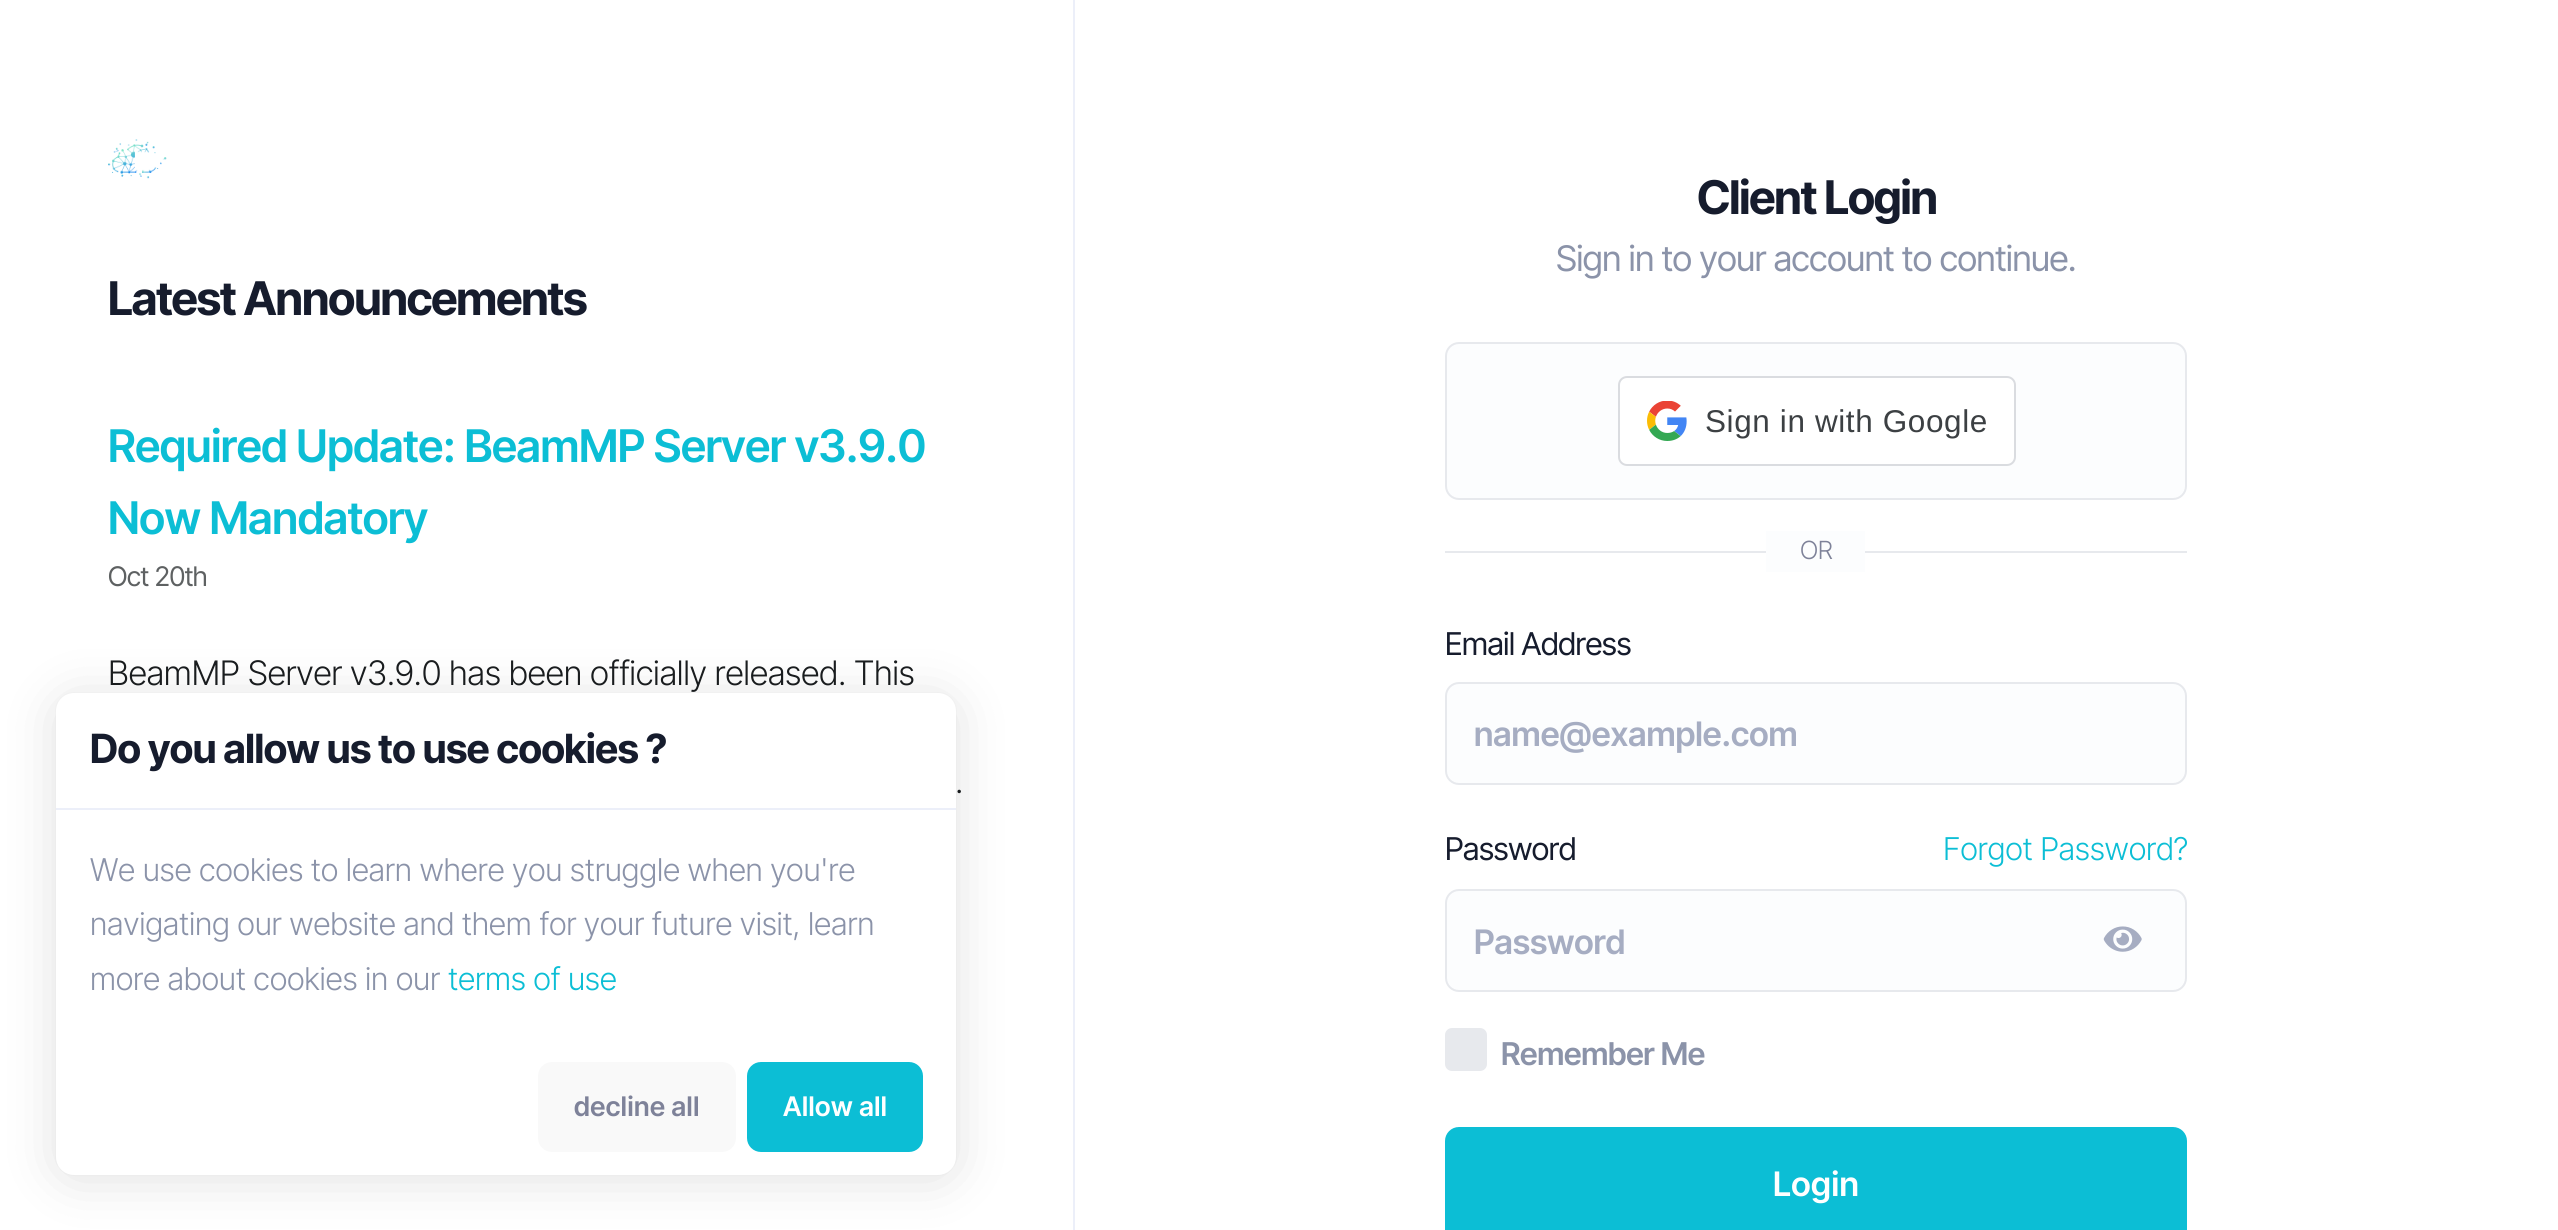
#include <cairo.h>
#include <math.h>
#include <stddef.h>


static void rgb(cairo_t *cr, int r, int g, int b)
{
	cairo_set_source_rgb(cr, r / 255.0, g / 255.0, b / 255.0);
}

static void face(cairo_t *cr, const char *family, double size, int italic, int bold)
{
	cairo_select_font_face(cr, family, italic ? CAIRO_FONT_SLANT_ITALIC : CAIRO_FONT_SLANT_NORMAL,
		bold ? CAIRO_FONT_WEIGHT_BOLD : CAIRO_FONT_WEIGHT_NORMAL);
	cairo_set_font_size(cr, size);
}

static void label(cairo_t *cr, double x, double y, const char *s)
{
	cairo_move_to(cr, x, y);
	cairo_show_text(cr, s);
}

static void tracked(cairo_t *cr, double x, double y, const char *s, double letter, double word)
{
	cairo_move_to(cr, x, y);
	while (*s) {
		char ch[5] = {0};
		int n = 0;
		do ch[n++] = *s++; while ((*s & 0xC0) == 0x80);
		cairo_show_text(cr, ch);
		cairo_rel_move_to(cr, letter + word * (*ch == ' '), 0);
	}
}

static void rect(cairo_t *cr, double x, double y, double w, double h)
{
	cairo_rectangle(cr, x, y, w, h);
	cairo_fill(cr);
}

static void rrect(cairo_t *cr, double x, double y, double w, double h, double r)
{
	cairo_new_sub_path(cr);
	cairo_arc(cr, x + w - r, y + h - r, r, 0, M_PI / 2);
	cairo_arc(cr, x + r, y + h - r, r, M_PI / 2, M_PI);
	cairo_arc(cr, x + r, y + r, r, M_PI, 1.5 * M_PI);
	cairo_arc(cr, x + w - r, y + r, r, 1.5 * M_PI, 2 * M_PI);
	cairo_close_path(cr);
}

static void soft_shadow(cairo_t *cr, double x, double y, double w, double h, double r, double blur, double alpha)
{
	cairo_push_group_with_content(cr, CAIRO_CONTENT_ALPHA);
	cairo_set_operator(cr, CAIRO_OPERATOR_SOURCE);
	for (int i = 15; i >= -15 && fmin(w, h) + blur * i / 3 > 0; i -= 2) {
		double e = blur * i / 6;
		cairo_set_source_rgba(cr, 0, 0, 0, alpha * erfc((i - 1) / 8.5) / 2);
		rrect(cr, x - e, y - e, w + 2 * e, h + 2 * e, fmax(0, fmin(r + e + blur * .6, fmin(w, h) / 2 + e)));
		cairo_fill(cr);
	}
	cairo_pattern_t *soft = cairo_pop_group(cr);
	cairo_mask(cr, soft);
	cairo_pattern_destroy(soft);
}

static void image(cairo_t *cr, const char *path, double x, double y, double w, double h)
{
	cairo_surface_t *image = cairo_image_surface_create_from_png(path);
	cairo_save(cr);
	cairo_set_source_surface(cr, image, x, y);
	cairo_rectangle(cr, x, y, w, h);
	cairo_fill(cr);
	cairo_restore(cr);
	cairo_surface_destroy(image);
}

static void draw(cairo_t *cr) {
	rgb(cr, 255, 255, 255);
	cairo_paint(cr);
	rgb(cr, 236, 239, 249);
	rect(cr, 1073, 0, 2, 1230);
	image(cr, "image0.png", 108, 139, 59, 40);
	face(cr, "Inter Tight", 46.4, 0, 1);
	rgb(cr, 22, 28, 45);
	tracked(cr, 108, 315, "Latest Announcements", -1.1, 0);
	face(cr, "Inter Tight SemiBold", 45, 0, 0);
	rgb(cr, 12, 190, 213);
	tracked(cr, 108, 462, "Required Update: BeamMP Server v3.9.0", -0.35, 0);
	tracked(cr, 108, 534, "Now Mandatory", -0.35, 0);
	face(cr, "Inter Tight", 27, 0, 0);
	rgb(cr, 94, 97, 98);
	tracked(cr, 108, 586, "Oct 20th", -0.35, 0);
	face(cr, "Inter Tight Light", 33.75, 0, 0);
	rgb(cr, 26, 29, 31);
	tracked(cr, 108, 685, "BeamMP Server v3.9.0 has been officially released. This", -0.35, 0);
	tracked(cr, 955, 793, ".", -0.35, 0);
	face(cr, "Inter Tight", 46.4, 0, 1);
	rgb(cr, 22, 28, 45);
	tracked(cr, 1697, 214, "Client Login", -1.1, 0);
	face(cr, "Inter Tight", 35.25, 0, 0);
	rgb(cr, 139, 147, 169);
	tracked(cr, 1556, 271, "Sign in to your account to continue.", -0.35, 0);
	rgb(cr, 252, 253, 254);
	rrect(cr, 1446, 343, 740, 156, 13);
	cairo_fill_preserve(cr);
	rgb(cr, 231, 233, 237);
	cairo_stroke(cr);
	rgb(cr, 255, 255, 255);
	rrect(cr, 1619, 377, 396, 88, 8);
	cairo_fill_preserve(cr);
	rgb(cr, 218, 220, 224);
	cairo_stroke(cr);
	image(cr, "image1.png", 1647, 401, 40, 40);
	face(cr, "Liberation Sans", 31.5, 0, 0);
	rgb(cr, 60, 64, 67);
	tracked(cr, 1705, 432, "Sign in with Google", 0.6, 0);
	rgb(cr, 231, 233, 237);
	rect(cr, 1445, 551, 742, 2);
	rgb(cr, 252, 253, 254);
	rect(cr, 1766, 531, 99, 41);
	face(cr, "Inter Tight Light", 25, 0, 0);
	rgb(cr, 126, 130, 153);
	tracked(cr, 1800, 559, "OR", -0.35, 0);
	face(cr, "Inter Tight", 31.4, 0, 0);
	rgb(cr, 22, 28, 45);
	tracked(cr, 1445, 655, "Email Address", -0.35, 0);
	rgb(cr, 252, 253, 254);
	rrect(cr, 1446, 683, 740, 101, 13);
	cairo_fill_preserve(cr);
	rgb(cr, 231, 233, 237);
	cairo_stroke(cr);
	face(cr, "Inter Tight SemiBold", 33.75, 0, 0);
	rgb(cr, 166, 173, 194);
	label(cr, 1474, 746, "name@example.com");
	face(cr, "Inter Tight", 31.4, 0, 0);
	rgb(cr, 22, 28, 45);
	tracked(cr, 1445, 860, "Password", -0.35, 0);
	face(cr, "Inter Tight Light", 31.4, 0, 0);
	rgb(cr, 12, 190, 213);
	tracked(cr, 1943, 860, "Forgot Password?", -0.23, 0);
	rgb(cr, 252, 253, 254);
	rrect(cr, 1446, 890, 740, 101, 13);
	cairo_fill_preserve(cr);
	rgb(cr, 231, 233, 237);
	cairo_stroke(cr);
	face(cr, "Inter Tight SemiBold", 33.75, 0, 0);
	rgb(cr, 166, 173, 194);
	label(cr, 1474, 954, "Password");
	image(cr, "image2.png", 2103, 926, 39, 26);
	rgb(cr, 231, 233, 237);
	rrect(cr, 1445, 1028, 42, 43, 7);
	cairo_fill(cr);
	face(cr, "Inter Tight SemiBold", 31.4, 0, 0);
	rgb(cr, 139, 147, 169);
	tracked(cr, 1501, 1065, "Remember Me", -0.23, 0);
	rgb(cr, 12, 190, 213);
	rrect(cr, 1446, 1128, 740, 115, 13);
	cairo_fill_preserve(cr);
	cairo_stroke(cr);
	face(cr, "Inter Tight SemiBold", 33.75, 0, 0);
	rgb(cr, 255, 255, 255);
	tracked(cr, 1773, 1196, "Login", 0.5, 0);
	rgb(cr, 0, 0, 0);
	soft_shadow(cr, 56, 698, 900, 481, 18, 27, 0.12);
	soft_shadow(cr, 56, 693, 900, 482, 18, 1, 0.05);
	rgb(cr, 255, 255, 255);
	rrect(cr, 56, 693, 900, 482, 18);
	cairo_fill(cr);
	rgb(cr, 236, 239, 249);
	rect(cr, 56, 808, 900, 2);
	face(cr, "Inter Tight", 40.25, 0, 1);
	rgb(cr, 22, 28, 45);
	tracked(cr, 90, 763, "Do you allow us to use cookies ?", -0.45, 0);
	face(cr, "Inter Tight Light", 31.4, 0, 0);
	rgb(cr, 139, 147, 169);
	tracked(cr, 90, 881, "We use cookies to learn where you struggle when you're", -0.23, 0);
	tracked(cr, 90, 935, "navigating our website and them for your future visit, learn", -0.23, 0);
	tracked(cr, 90, 990, "more about cookies in our", -0.23, 0);
	rgb(cr, 12, 190, 213);
	tracked(cr, 448, 990, "terms of use", -0.23, 0);
	rgb(cr, 249, 249, 249);
	rrect(cr, 538, 1062, 198, 90, 14);
	cairo_fill(cr);
	face(cr, "Inter Tight SemiBold", 27, 0, 0);
	rgb(cr, 126, 130, 153);
	tracked(cr, 574, 1116, "decline all", 0.5, 0);
	rgb(cr, 12, 190, 213);
	rrect(cr, 748, 1063, 174, 88, 13);
	cairo_fill_preserve(cr);
	cairo_stroke(cr);
	rgb(cr, 255, 255, 255);
	tracked(cr, 783, 1116, "Allow all", 0.5, 0);
}

int main(void) {
	cairo_surface_t *surface = cairo_image_surface_create(CAIRO_FORMAT_RGB24, 2558, 1230);
	cairo_t *cr = cairo_create(surface);
	cairo_font_options_t *options = cairo_font_options_create();
	cairo_font_options_set_hint_metrics(options, CAIRO_HINT_METRICS_OFF);
	cairo_font_options_set_hint_style(options, CAIRO_HINT_STYLE_NONE);
	cairo_set_font_options(cr, options);
	cairo_set_miter_limit(cr, 4);
	draw(cr);
	cairo_surface_write_to_png(surface, "render.png");
	cairo_font_options_destroy(options);
	cairo_destroy(cr);
	cairo_surface_destroy(surface);
	return 0;
}
